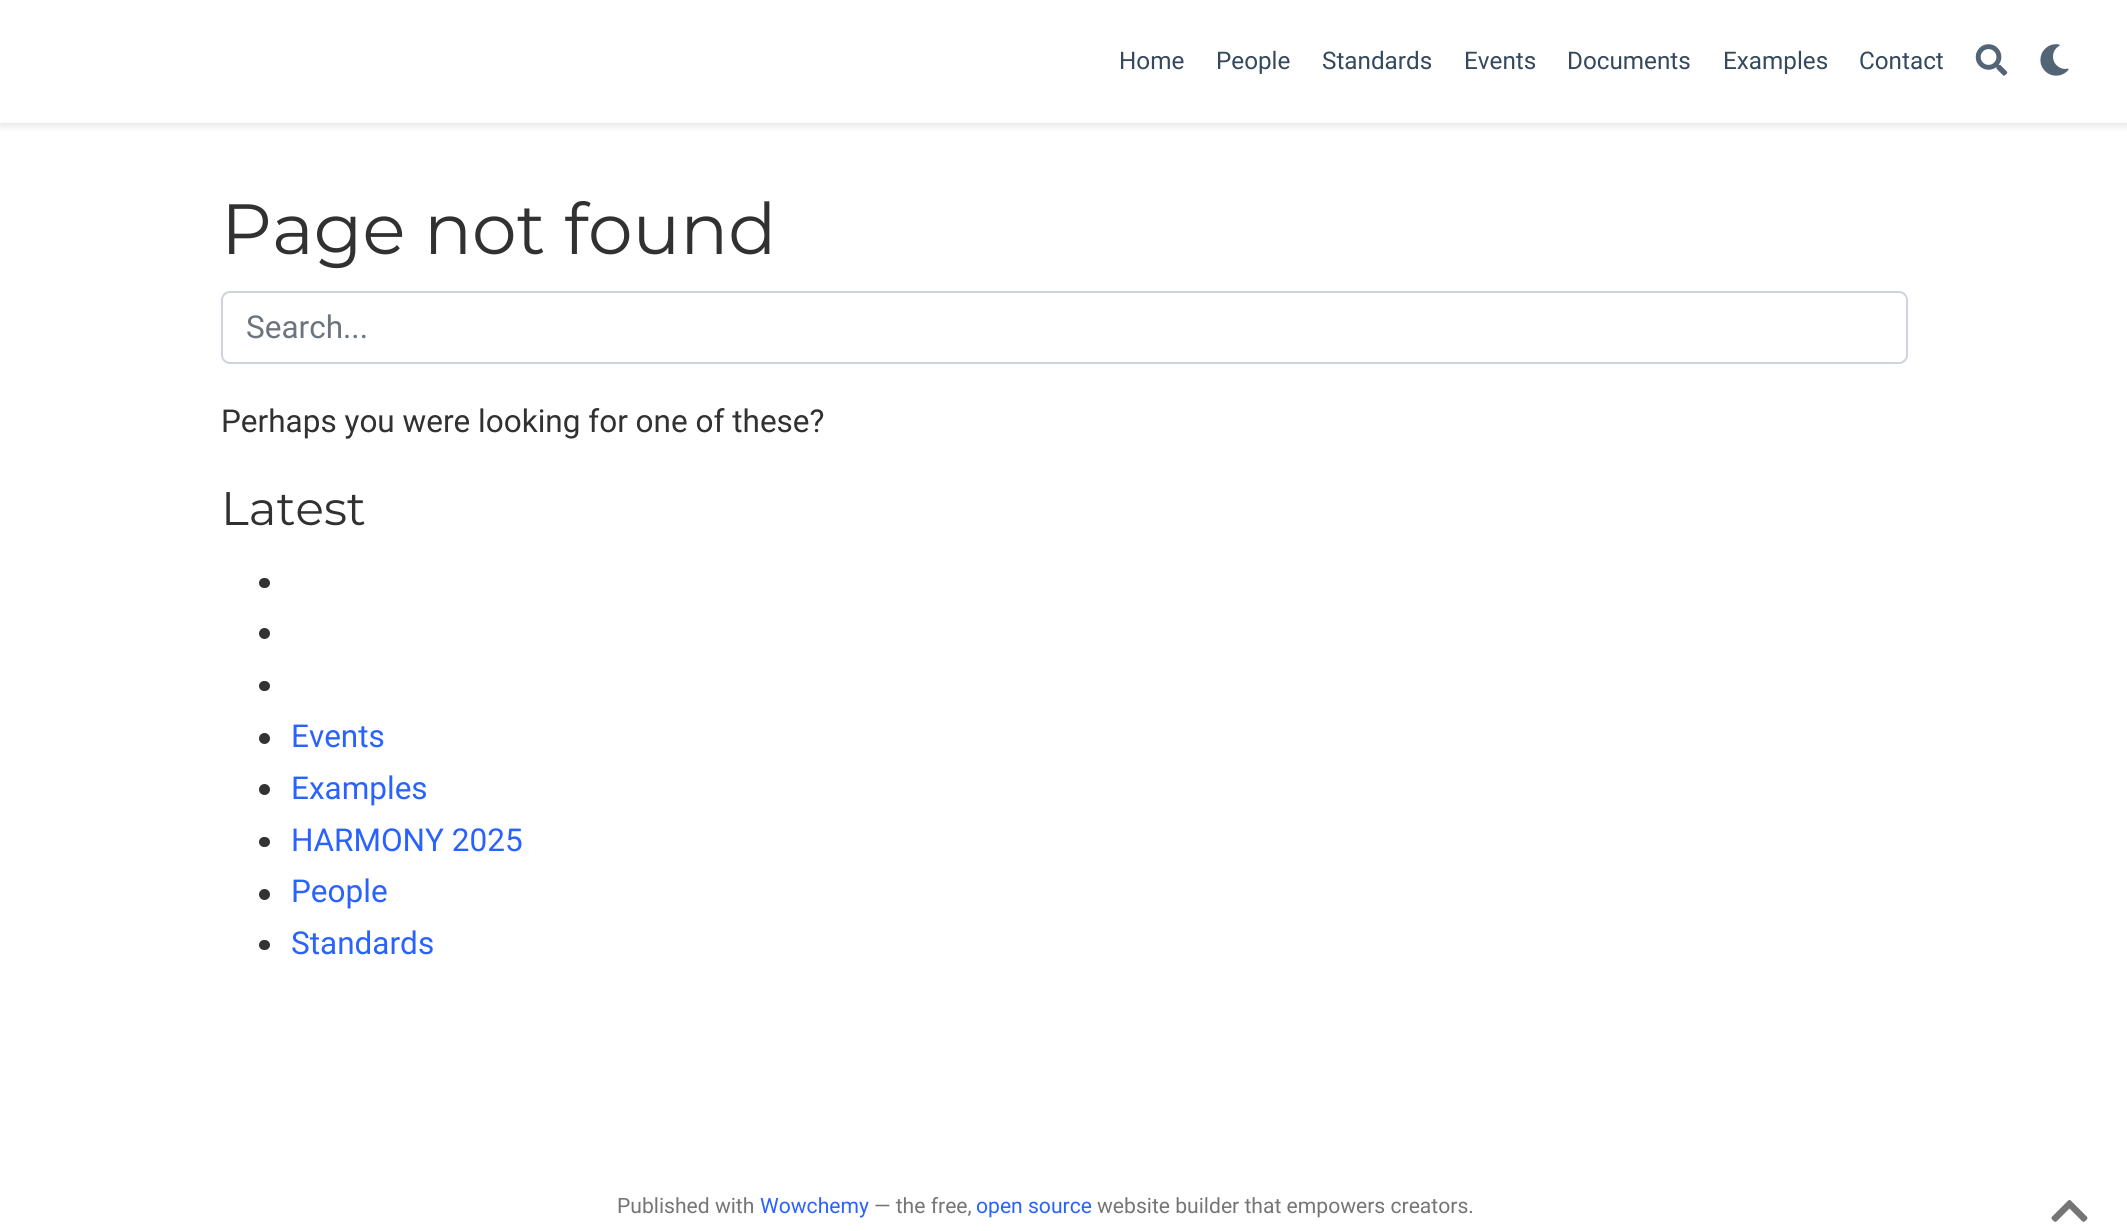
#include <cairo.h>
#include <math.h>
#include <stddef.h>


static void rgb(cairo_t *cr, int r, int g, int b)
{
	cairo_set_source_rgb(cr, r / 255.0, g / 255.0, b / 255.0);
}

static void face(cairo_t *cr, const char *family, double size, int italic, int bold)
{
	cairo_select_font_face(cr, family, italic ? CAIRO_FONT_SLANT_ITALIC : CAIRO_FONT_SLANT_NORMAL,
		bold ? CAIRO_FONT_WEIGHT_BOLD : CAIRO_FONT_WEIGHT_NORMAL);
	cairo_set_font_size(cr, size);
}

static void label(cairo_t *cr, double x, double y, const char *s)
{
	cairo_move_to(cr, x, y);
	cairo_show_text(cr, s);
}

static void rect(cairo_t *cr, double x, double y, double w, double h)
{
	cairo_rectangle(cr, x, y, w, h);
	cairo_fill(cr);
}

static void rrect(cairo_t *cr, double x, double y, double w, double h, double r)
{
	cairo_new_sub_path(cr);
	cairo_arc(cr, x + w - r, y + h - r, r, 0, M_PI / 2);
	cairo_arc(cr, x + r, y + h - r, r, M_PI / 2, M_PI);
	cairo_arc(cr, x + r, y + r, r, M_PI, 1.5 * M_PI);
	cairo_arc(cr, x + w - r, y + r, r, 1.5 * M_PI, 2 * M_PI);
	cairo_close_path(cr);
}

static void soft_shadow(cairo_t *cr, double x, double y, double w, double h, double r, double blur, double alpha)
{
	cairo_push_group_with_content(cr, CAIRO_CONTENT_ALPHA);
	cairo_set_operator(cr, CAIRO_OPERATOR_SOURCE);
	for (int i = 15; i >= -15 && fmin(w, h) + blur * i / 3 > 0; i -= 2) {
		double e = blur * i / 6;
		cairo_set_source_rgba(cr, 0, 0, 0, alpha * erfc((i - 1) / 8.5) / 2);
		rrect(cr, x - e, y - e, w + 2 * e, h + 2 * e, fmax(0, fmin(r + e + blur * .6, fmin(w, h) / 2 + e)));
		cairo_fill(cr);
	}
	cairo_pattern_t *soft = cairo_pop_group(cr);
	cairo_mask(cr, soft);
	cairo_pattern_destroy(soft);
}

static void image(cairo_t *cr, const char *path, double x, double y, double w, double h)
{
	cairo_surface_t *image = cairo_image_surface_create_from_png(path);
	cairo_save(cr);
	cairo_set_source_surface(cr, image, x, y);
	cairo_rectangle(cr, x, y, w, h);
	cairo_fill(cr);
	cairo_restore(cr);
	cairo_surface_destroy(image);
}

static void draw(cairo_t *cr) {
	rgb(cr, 255, 255, 255);
	cairo_paint(cr);
	rgb(cr, 0, 0, 0);
	soft_shadow(cr, 0, 4, 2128, 122, 0, 4, 0.11);
	rgb(cr, 255, 255, 255);
	rect(cr, 0, 0, 2127, 123);
	face(cr, "Roboto", 24.25, 0, 0);
	rgb(cr, 52, 73, 94);
	label(cr, 1119, 69, "Home");
	label(cr, 1216, 69, "People");
	label(cr, 1322, 69, "Standards");
	label(cr, 1464, 69, "Events");
	label(cr, 1567, 69, "Documents");
	label(cr, 1723, 69, "Examples");
	label(cr, 1859, 69, "Contact");
	image(cr, "image0.png", 1975, 44, 33, 32);
	image(cr, "image1.png", 2040, 44, 29, 32);
	face(cr, "Montserrat", 71, 0, 0);
	rgb(cr, 49, 49, 49);
	label(cr, 221, 254, "Page not found");
	rrect(cr, 222, 292, 1685, 71, 8);
	rgb(cr, 206, 212, 218);
	cairo_stroke(cr);
	face(cr, "Roboto", 31.5, 0, 0);
	rgb(cr, 108, 117, 125);
	label(cr, 246, 338, "Search...");
	rgb(cr, 49, 49, 49);
	label(cr, 221, 432, "Perhaps you were looking for one of these?");
	face(cr, "Montserrat", 47, 0, 0);
	label(cr, 221, 525, "Latest");
	rgb(cr, 51, 51, 51);
	rrect(cr, 259, 578, 11, 10, 5);
	cairo_fill(cr);
	cairo_arc(cr, 264.5, 633.5, 5.5, 0, 2 * M_PI);
	cairo_fill(cr);
	rrect(cr, 259, 681, 11, 10, 5);
	cairo_fill(cr);
	cairo_arc(cr, 264.5, 738.5, 5.5, 0, 2 * M_PI);
	cairo_fill(cr);
	face(cr, "Roboto", 31.5, 0, 0);
	rgb(cr, 41, 98, 255);
	label(cr, 291, 747, "Events");
	rgb(cr, 51, 51, 51);
	cairo_new_path(cr);
	cairo_arc(cr, 264.5, 789.5, 5.5, 0, 2 * M_PI);
	cairo_fill(cr);
	rgb(cr, 41, 98, 255);
	label(cr, 291, 799, "Examples");
	rgb(cr, 51, 51, 51);
	rrect(cr, 259, 837, 11, 10, 5);
	cairo_fill(cr);
	rgb(cr, 41, 98, 255);
	label(cr, 291, 851, "HARMONY 2025");
	rgb(cr, 51, 51, 51);
	cairo_new_path(cr);
	cairo_arc(cr, 264.5, 894.5, 5.5, 0, 2 * M_PI);
	cairo_fill(cr);
	rgb(cr, 41, 98, 255);
	label(cr, 291, 902, "People");
	rgb(cr, 51, 51, 51);
	rrect(cr, 259, 940, 11, 10, 5);
	cairo_fill(cr);
	rgb(cr, 41, 98, 255);
	label(cr, 291, 954, "Standards");
	face(cr, "Roboto", 21.1, 0, 0);
	rgb(cr, 117, 117, 117);
	label(cr, 617, 1213, "Published with");
	rgb(cr, 41, 98, 255);
	label(cr, 760, 1213, "Wowchemy");
	rgb(cr, 117, 117, 117);
	label(cr, 874, 1213, "— the free,");
	rgb(cr, 41, 98, 255);
	label(cr, 976, 1213, "open source");
	rgb(cr, 117, 117, 117);
	label(cr, 1097, 1213, "website builder that empowers creators.");
	image(cr, "image2.png", 2051, 1200, 37, 22);
}

int main(void) {
	cairo_surface_t *surface = cairo_image_surface_create(CAIRO_FORMAT_RGB24, 2127, 1231);
	cairo_t *cr = cairo_create(surface);
	cairo_font_options_t *options = cairo_font_options_create();
	cairo_font_options_set_hint_metrics(options, CAIRO_HINT_METRICS_OFF);
	cairo_font_options_set_hint_style(options, CAIRO_HINT_STYLE_NONE);
	cairo_set_font_options(cr, options);
	cairo_set_miter_limit(cr, 4);
	draw(cr);
	cairo_surface_write_to_png(surface, "render.png");
	cairo_font_options_destroy(options);
	cairo_destroy(cr);
	cairo_surface_destroy(surface);
	return 0;
}
